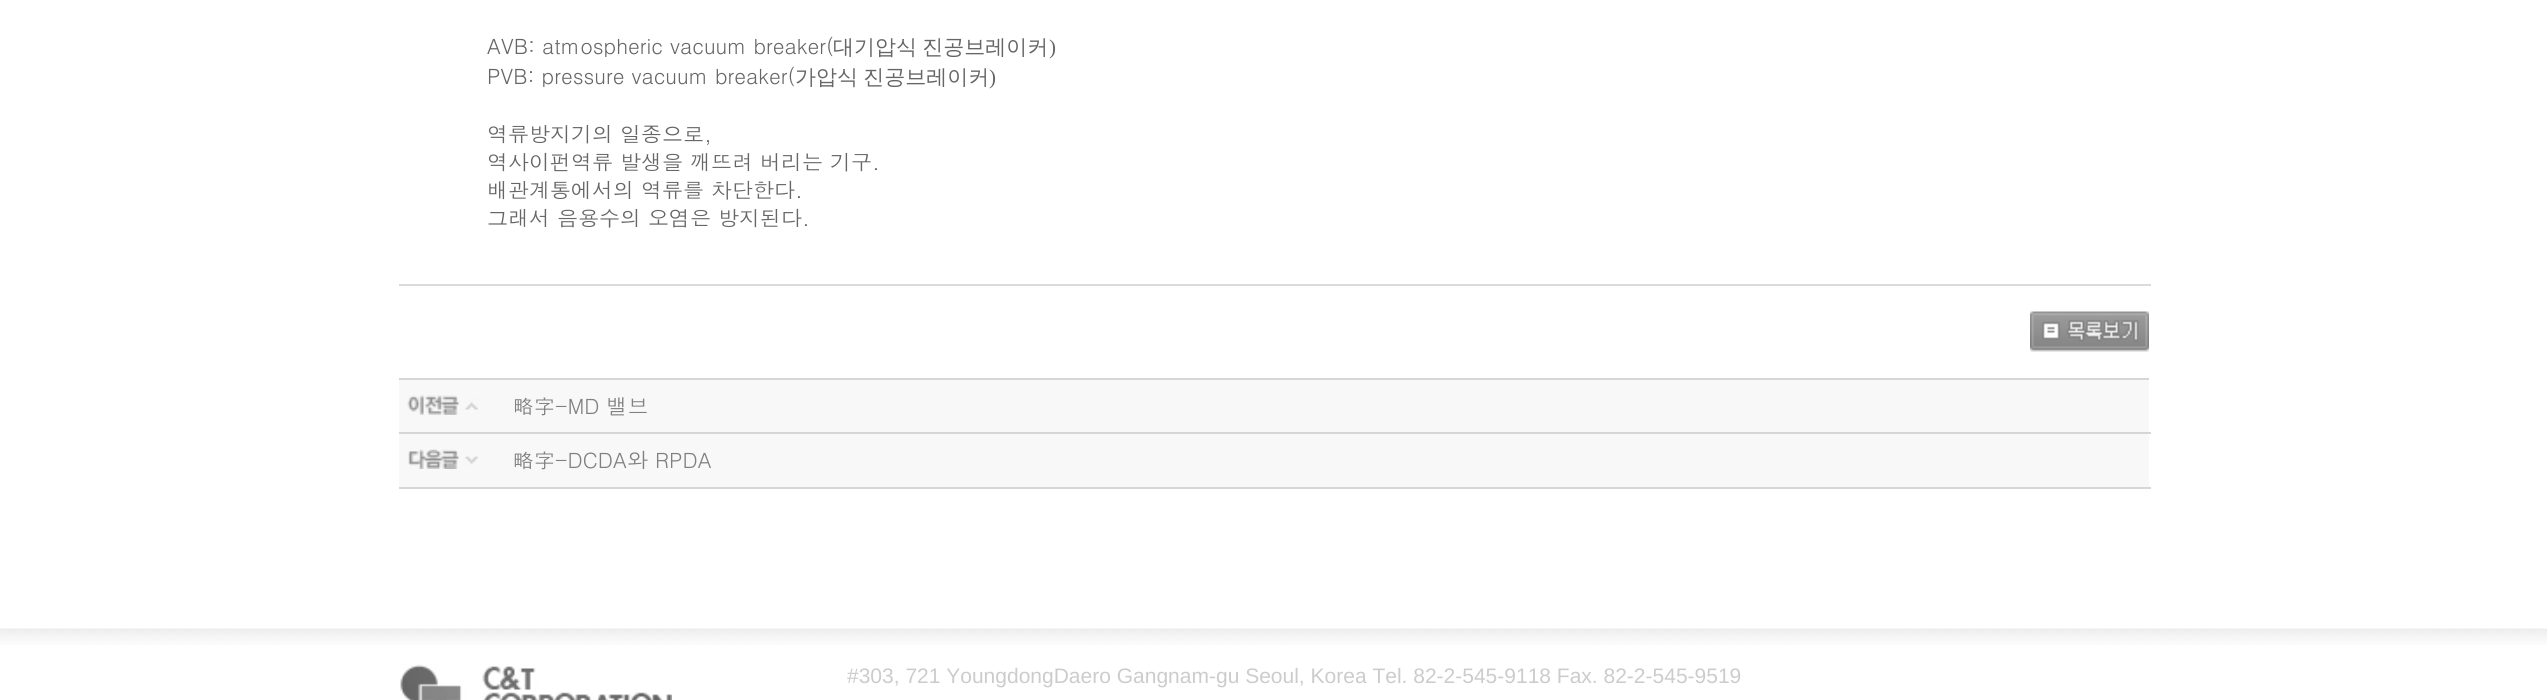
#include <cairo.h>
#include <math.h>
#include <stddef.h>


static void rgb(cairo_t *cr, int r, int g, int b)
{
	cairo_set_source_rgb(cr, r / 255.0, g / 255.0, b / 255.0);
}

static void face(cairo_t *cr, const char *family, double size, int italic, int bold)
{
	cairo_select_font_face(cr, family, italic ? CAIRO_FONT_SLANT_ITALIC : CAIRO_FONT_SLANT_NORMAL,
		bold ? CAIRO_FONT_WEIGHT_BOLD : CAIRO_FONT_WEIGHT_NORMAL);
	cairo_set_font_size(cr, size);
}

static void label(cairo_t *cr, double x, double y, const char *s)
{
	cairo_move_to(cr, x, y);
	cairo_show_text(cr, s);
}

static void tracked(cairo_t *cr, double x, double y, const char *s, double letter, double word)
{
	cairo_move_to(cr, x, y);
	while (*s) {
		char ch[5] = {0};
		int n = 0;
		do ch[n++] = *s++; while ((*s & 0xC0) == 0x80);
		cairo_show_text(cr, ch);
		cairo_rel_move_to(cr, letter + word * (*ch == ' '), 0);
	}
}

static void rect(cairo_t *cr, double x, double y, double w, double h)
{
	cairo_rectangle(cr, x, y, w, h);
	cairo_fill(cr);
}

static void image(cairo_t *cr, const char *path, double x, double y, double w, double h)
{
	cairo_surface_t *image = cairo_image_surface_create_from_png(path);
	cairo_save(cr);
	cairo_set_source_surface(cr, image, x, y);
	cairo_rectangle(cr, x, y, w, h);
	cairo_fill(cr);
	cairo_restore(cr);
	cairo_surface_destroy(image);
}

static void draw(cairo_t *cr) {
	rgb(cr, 255, 255, 255);
	cairo_paint(cr);
	rgb(cr, 219, 219, 219);
	rect(cr, 399, 284, 1752, 2);
	face(cr, "Dotum", 21, 0, 0);
	rgb(cr, 102, 102, 102);
	label(cr, 487, 54, "AVB: atmospheric vacuum breaker(");
	face(cr, "WenQuanYi Zen Hei Medium", 21, 0, 0);
	tracked(cr, 833, 54, "대기압식 진공브레이커", 0, -1);
	face(cr, "Liberation Serif", 21, 0, 0);
	label(cr, 1049, 54, ")");
	face(cr, "Dotum", 21, 0, 0);
	label(cr, 487, 84, "PVB: pressure vacuum breaker(");
	face(cr, "WenQuanYi Zen Hei Medium", 21, 0, 0);
	tracked(cr, 795, 84, "가압식 진공브레이커", 0, -1);
	face(cr, "Liberation Serif", 21, 0, 0);
	label(cr, 989, 84, ")");
	face(cr, "Dotum", 21, 0, 0);
	label(cr, 487, 142, "역류방지기의 일종으로,");
	label(cr, 487, 170, "역사이펀역류 발생을 깨뜨려 버리는 기구.");
	label(cr, 487, 198, "배관계통에서의 역류를 차단한다.");
	label(cr, 487, 226, "그래서 음용수의 오염은 방지된다.");
	image(cr, "image0.png", 2030, 311, 119, 41);
	rgb(cr, 248, 248, 248);
	rect(cr, 399, 380, 1750, 107);
	rgb(cr, 214, 214, 214);
	rect(cr, 399, 378, 1750, 2);
	image(cr, "image1.png", 407, 395, 71, 20);
	rect(cr, 399, 432, 1752, 2);
	rgb(cr, 128, 128, 128);
	label(cr, 513, 414, "略字-MD 밸브");
	image(cr, "image2.png", 408, 449, 70, 20);
	rgb(cr, 214, 214, 214);
	rect(cr, 399, 487, 1752, 2);
	rgb(cr, 128, 128, 128);
	label(cr, 513, 468, "略字-DCDA와 RPDA");
	image(cr, "image3.png", 0, 628, 2547, 17);
	image(cr, "image4.png", 400, 664, 272, 36);
	face(cr, "Liberation Sans", 21, 0, 0);
	rgb(cr, 204, 204, 204);
	label(cr, 847, 683, "#303, 721 YoungdongDaero Gangnam-gu Seoul, Korea Tel. 82-2-545-9118 Fax. 82-2-545-9519");
}

int main(void) {
	cairo_surface_t *surface = cairo_image_surface_create(CAIRO_FORMAT_RGB24, 2547, 700);
	cairo_t *cr = cairo_create(surface);
	cairo_font_options_t *options = cairo_font_options_create();
	cairo_font_options_set_hint_metrics(options, CAIRO_HINT_METRICS_OFF);
	cairo_font_options_set_hint_style(options, CAIRO_HINT_STYLE_NONE);
	cairo_set_font_options(cr, options);
	cairo_set_miter_limit(cr, 4);
	draw(cr);
	cairo_surface_write_to_png(surface, "render.png");
	cairo_font_options_destroy(options);
	cairo_destroy(cr);
	cairo_surface_destroy(surface);
	return 0;
}
